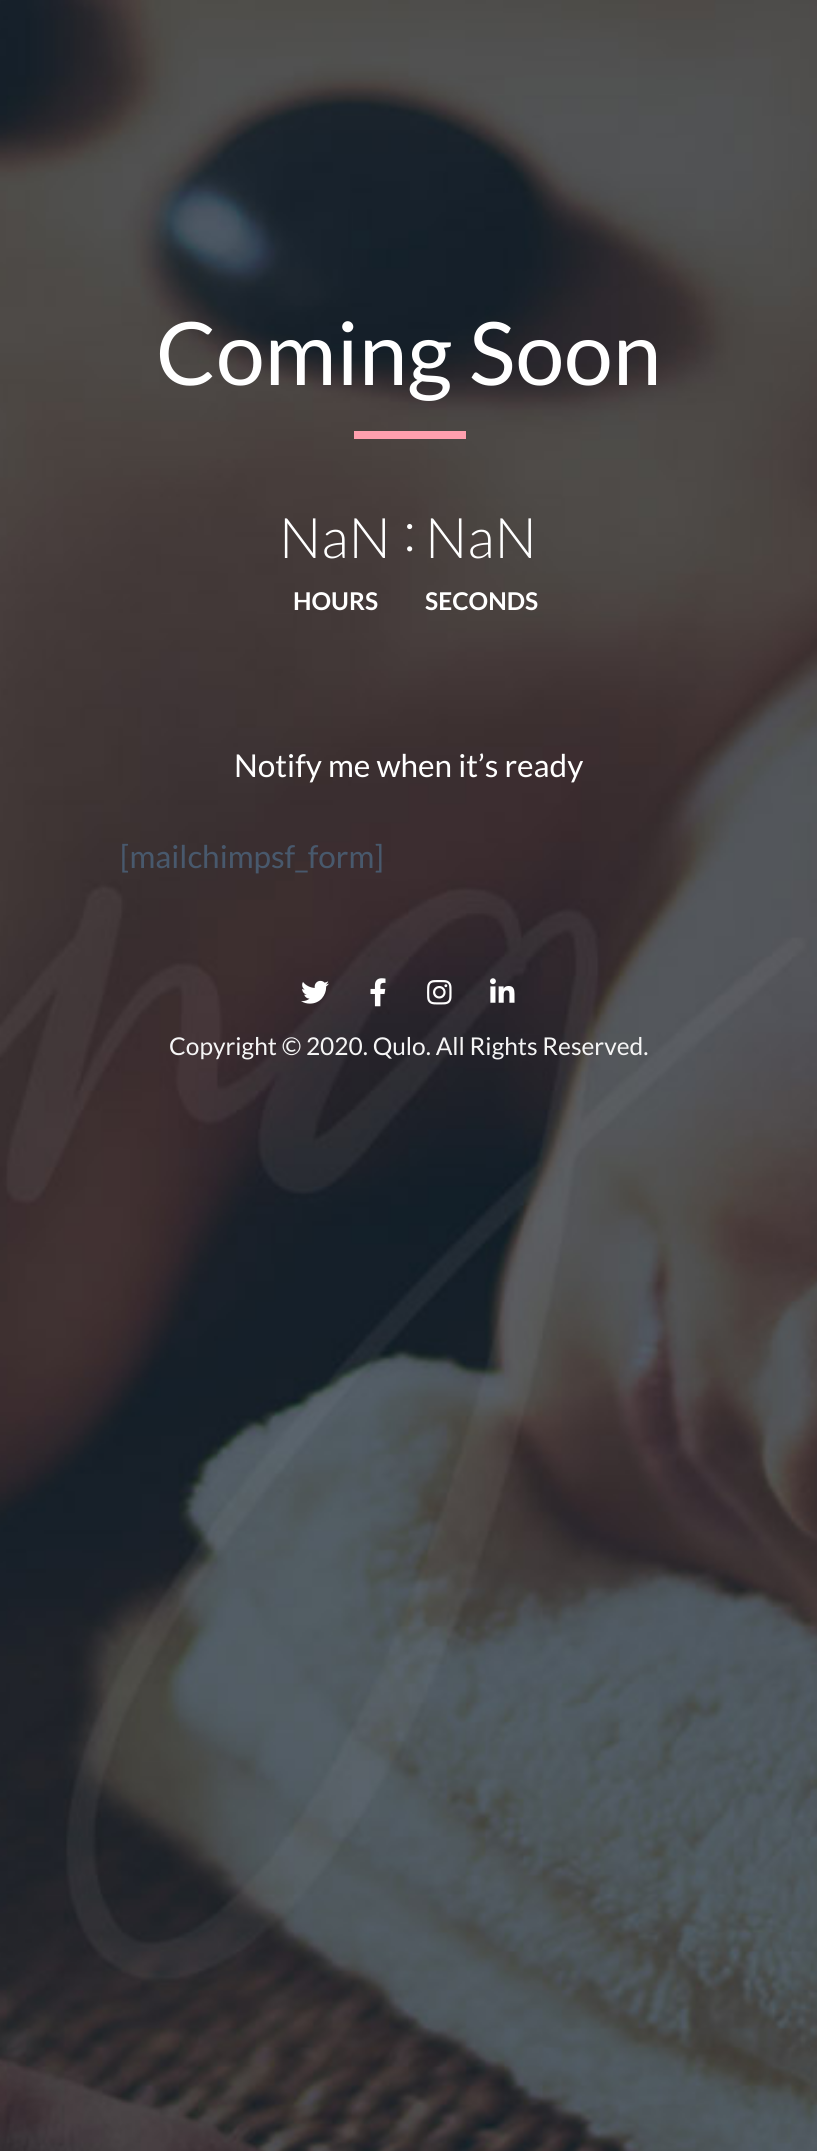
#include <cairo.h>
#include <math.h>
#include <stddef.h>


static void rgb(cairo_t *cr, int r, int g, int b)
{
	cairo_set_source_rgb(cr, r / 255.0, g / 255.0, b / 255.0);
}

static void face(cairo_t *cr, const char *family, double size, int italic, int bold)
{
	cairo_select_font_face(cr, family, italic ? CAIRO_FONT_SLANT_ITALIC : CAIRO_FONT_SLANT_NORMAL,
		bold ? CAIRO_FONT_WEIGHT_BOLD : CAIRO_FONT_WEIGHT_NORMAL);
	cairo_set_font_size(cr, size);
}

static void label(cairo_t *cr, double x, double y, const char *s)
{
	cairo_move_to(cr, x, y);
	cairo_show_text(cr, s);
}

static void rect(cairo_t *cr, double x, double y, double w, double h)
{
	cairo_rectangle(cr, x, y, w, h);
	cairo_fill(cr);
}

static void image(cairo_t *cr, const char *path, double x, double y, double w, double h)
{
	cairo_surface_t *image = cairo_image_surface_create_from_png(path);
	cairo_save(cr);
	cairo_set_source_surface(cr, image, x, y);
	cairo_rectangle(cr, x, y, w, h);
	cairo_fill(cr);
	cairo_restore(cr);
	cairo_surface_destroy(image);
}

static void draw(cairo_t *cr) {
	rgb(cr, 255, 255, 255);
	cairo_paint(cr);
	image(cr, "image0.png", 0, 0, 817, 2151);
	face(cr, "Lato", 87.5, 0, 0);
	rgb(cr, 255, 255, 255);
	label(cr, 156, 385, "Coming Soon");
	rgb(cr, 255, 159, 174);
	rect(cr, 354, 431, 112, 8);
	face(cr, "Lato Light", 56, 0, 0);
	rgb(cr, 255, 255, 255);
	label(cr, 279, 558, "NaN");
	label(cr, 403, 551, ":");
	face(cr, "Lato", 24.5, 0, 1);
	label(cr, 293, 610, "HOURS");
	face(cr, "Lato Light", 56, 0, 0);
	label(cr, 425, 558, "NaN");
	face(cr, "Lato", 24.5, 0, 1);
	label(cr, 425, 610, "SECONDS");
	face(cr, "Lato", 31.5, 0, 0);
	label(cr, 234, 777, "Notify me when it’s ready");
	rgb(cr, 72, 89, 109);
	label(cr, 120, 868, "[mailchimpsf_form]");
	image(cr, "image1.png", 301, 980, 28, 24);
	image(cr, "image2.png", 370, 978, 16, 29);
	image(cr, "image3.png", 427, 980, 25, 25);
	image(cr, "image4.png", 490, 978, 25, 25);
	face(cr, "Lato", 24.5, 0, 0);
	rgb(cr, 245, 245, 245);
	label(cr, 169, 1055, "Copyright © 2020. Qulo. All Rights Reserved.");
}

int main(void) {
	cairo_surface_t *surface = cairo_image_surface_create(CAIRO_FORMAT_RGB24, 817, 2151);
	cairo_t *cr = cairo_create(surface);
	cairo_font_options_t *options = cairo_font_options_create();
	cairo_font_options_set_hint_metrics(options, CAIRO_HINT_METRICS_OFF);
	cairo_font_options_set_hint_style(options, CAIRO_HINT_STYLE_NONE);
	cairo_set_font_options(cr, options);
	cairo_set_miter_limit(cr, 4);
	draw(cr);
	cairo_surface_write_to_png(surface, "render.png");
	cairo_font_options_destroy(options);
	cairo_destroy(cr);
	cairo_surface_destroy(surface);
	return 0;
}
